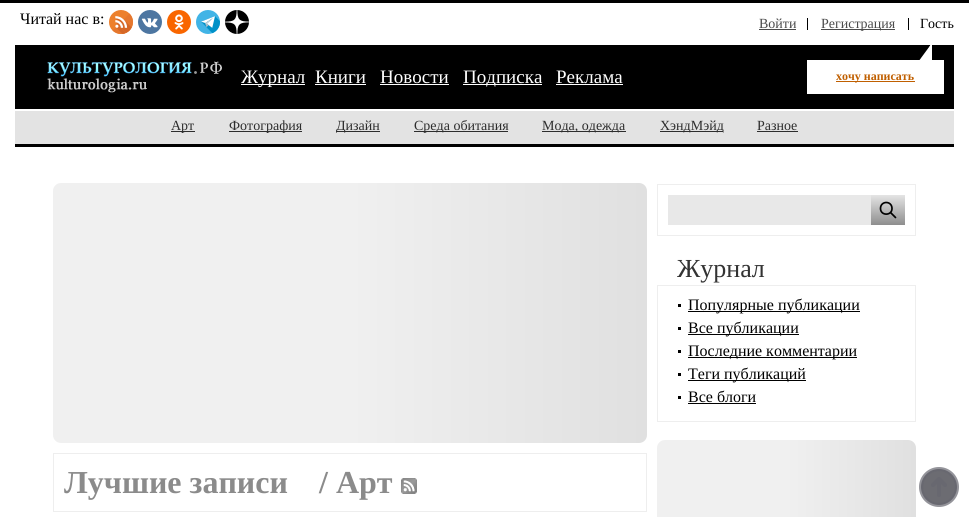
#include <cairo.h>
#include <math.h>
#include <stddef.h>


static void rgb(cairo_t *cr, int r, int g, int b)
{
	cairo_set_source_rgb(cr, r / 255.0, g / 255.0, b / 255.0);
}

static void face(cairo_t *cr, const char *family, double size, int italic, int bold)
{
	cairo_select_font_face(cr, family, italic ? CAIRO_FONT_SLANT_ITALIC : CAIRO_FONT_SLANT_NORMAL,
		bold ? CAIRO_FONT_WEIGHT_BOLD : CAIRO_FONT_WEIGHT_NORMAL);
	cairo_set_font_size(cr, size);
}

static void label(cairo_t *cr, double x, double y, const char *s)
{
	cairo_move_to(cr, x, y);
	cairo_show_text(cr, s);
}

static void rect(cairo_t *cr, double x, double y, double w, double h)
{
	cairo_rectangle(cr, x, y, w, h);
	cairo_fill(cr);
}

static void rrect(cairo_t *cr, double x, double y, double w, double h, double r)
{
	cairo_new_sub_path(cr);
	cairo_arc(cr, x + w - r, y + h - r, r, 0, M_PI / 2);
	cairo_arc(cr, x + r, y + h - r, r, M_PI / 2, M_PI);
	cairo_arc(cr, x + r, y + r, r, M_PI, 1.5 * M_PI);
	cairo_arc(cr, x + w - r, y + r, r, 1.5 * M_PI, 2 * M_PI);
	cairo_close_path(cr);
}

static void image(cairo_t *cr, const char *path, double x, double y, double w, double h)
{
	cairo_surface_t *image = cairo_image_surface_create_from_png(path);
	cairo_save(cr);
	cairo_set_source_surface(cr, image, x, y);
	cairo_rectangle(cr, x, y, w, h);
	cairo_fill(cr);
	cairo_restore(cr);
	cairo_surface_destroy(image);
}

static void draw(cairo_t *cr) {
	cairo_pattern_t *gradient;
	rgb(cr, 255, 255, 255);
	cairo_paint(cr);
	rgb(cr, 0, 0, 0);
	rect(cr, 0, 0, 969, 3);
	face(cr, "Liberation Serif", 16, 0, 0);
	label(cr, 20, 24, "Читай нас в:");
	image(cr, "image0.png", 109, 10, 24, 24);
	image(cr, "image1.png", 138, 10, 24, 24);
	image(cr, "image2.png", 167, 10, 24, 24);
	image(cr, "image3.png", 196, 10, 24, 24);
	image(cr, "image4.png", 225, 10, 24, 24);
	face(cr, "Liberation Serif", 14, 0, 0);
	rgb(cr, 75, 75, 75);
	label(cr, 759, 28, "Войти");
	rect(cr, 759, 29, 37, 1);
	rgb(cr, 0, 0, 0);
	rect(cr, 908, 18, 1, 12);
	rect(cr, 807, 18, 1, 12);
	rgb(cr, 75, 75, 75);
	rect(cr, 821, 29, 74, 1);
	label(cr, 821, 28, "Регистрация");
	rgb(cr, 0, 0, 0);
	label(cr, 920, 28, "Гость");
	rect(cr, 15, 45, 939, 64);
	image(cr, "image5.png", 47, 61, 175, 32);
	rgb(cr, 255, 255, 255);
	rect(cr, 241, 84, 64, 1);
	face(cr, "Liberation Serif", 19, 0, 0);
	label(cr, 241, 83, "Журнал");
	label(cr, 315, 83, "Книги");
	rect(cr, 315, 84, 51, 1);
	label(cr, 380, 83, "Новости");
	rect(cr, 380, 84, 69, 1);
	rect(cr, 463, 84, 79, 1);
	label(cr, 463, 83, "Подписка");
	label(cr, 556, 83, "Реклама");
	rect(cr, 556, 84, 67, 1);
	image(cr, "image6.png", 807, 45, 137, 49);
	rgb(cr, 192, 95, 0);
	rect(cr, 836, 81, 79, 1);
	face(cr, "Liberation Serif", 12, 0, 1);
	label(cr, 836, 80, "хочу написать");
	rgb(cr, 227, 227, 227);
	rect(cr, 15, 111, 939, 33);
	rgb(cr, 0, 0, 0);
	rect(cr, 15, 144, 939, 3);
	rgb(cr, 45, 45, 45);
	rect(cr, 171, 131, 24, 1);
	face(cr, "Liberation Serif", 14, 0, 0);
	label(cr, 171, 130, "Арт");
	rect(cr, 229, 131, 73, 1);
	label(cr, 229, 130, "Фотография");
	rect(cr, 336, 131, 44, 1);
	label(cr, 336, 130, "Дизайн");
	rect(cr, 414, 131, 94, 1);
	label(cr, 414, 130, "Среда обитания");
	rect(cr, 542, 131, 84, 1);
	label(cr, 542, 130, "Мода, одежда");
	rect(cr, 660, 131, 63, 1);
	label(cr, 660, 130, "ХэндМэйд");
	label(cr, 757, 130, "Разное");
	rect(cr, 757, 131, 41, 1);
	cairo_rectangle(cr, 657.5, 184.5, 258, 51);
	rgb(cr, 238, 238, 238);
	cairo_set_line_width(cr, 1);
	cairo_stroke(cr);
	rgb(cr, 232, 232, 232);
	rect(cr, 668, 195, 203, 30);
	gradient = cairo_pattern_create_linear(888, 195, 888, 225);
	cairo_pattern_add_color_stop_rgba(gradient, 0, 0.894, 0.894, 0.894, 1);
	cairo_pattern_add_color_stop_rgba(gradient, 1, 0.557, 0.557, 0.557, 1);
	cairo_set_source(cr, gradient);
	cairo_pattern_destroy(gradient);
	rect(cr, 871, 195, 34, 30);
	cairo_new_path(cr);
	cairo_move_to(cr, 895.5, 217.5);
	cairo_line_to(cr, 890.5, 212.5);
	cairo_move_to(cr, 892, 208.5);
	cairo_curve_to(cr, 892, 216, 880.5, 216, 880.5, 208.5);
	cairo_curve_to(cr, 880.5, 200.5, 892, 200.5, 892, 208.5);
	cairo_close_path(cr);
	rgb(cr, 0, 0, 0);
	cairo_set_line_width(cr, 1.7);
	cairo_set_line_cap(cr, CAIRO_LINE_CAP_ROUND);
	cairo_set_line_join(cr, CAIRO_LINE_JOIN_ROUND);
	cairo_stroke(cr);
	face(cr, "Liberation Serif", 26, 0, 0);
	rgb(cr, 51, 51, 51);
	label(cr, 677, 277, "Журнал");
	cairo_rectangle(cr, 657.5, 285.5, 258, 136);
	rgb(cr, 238, 238, 238);
	cairo_set_line_width(cr, 1);
	cairo_set_line_cap(cr, CAIRO_LINE_CAP_BUTT);
	cairo_set_line_join(cr, CAIRO_LINE_JOIN_MITER);
	cairo_stroke(cr);
	rgb(cr, 0, 0, 0);
	rect(cr, 678, 304, 3, 3);
	rect(cr, 688, 311, 172, 1);
	face(cr, "Liberation Serif", 16, 0, 0);
	label(cr, 688, 310, "Популярные публикации");
	rect(cr, 678, 327, 3, 3);
	rect(cr, 688, 334, 111, 1);
	label(cr, 688, 333, "Все публикации");
	rect(cr, 678, 350, 3, 3);
	rect(cr, 688, 357, 169, 1);
	label(cr, 688, 356, "Последние комментарии");
	rect(cr, 678, 373, 3, 3);
	rect(cr, 688, 380, 118, 1);
	label(cr, 688, 379, "Теги публикаций");
	rect(cr, 678, 396, 3, 3);
	label(cr, 688, 402, "Все блоги");
	rect(cr, 688, 403, 68, 1);
	gradient = cairo_pattern_create_linear(657, 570, 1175, 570);
	cairo_pattern_add_color_stop_rgba(gradient, 0.25, 0.941, 0.941, 0.941, 1);
	cairo_pattern_add_color_stop_rgba(gradient, 0.5, 0.878, 0.878, 0.878, 1);
	cairo_pattern_add_color_stop_rgba(gradient, 0.75, 0.941, 0.941, 0.941, 1);
	cairo_set_source(cr, gradient);
	cairo_pattern_destroy(gradient);
	rrect(cr, 657, 440, 259, 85, 8);
	cairo_fill(cr);
	gradient = cairo_pattern_create_linear(53, 313, 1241, 313);
	cairo_pattern_add_color_stop_rgba(gradient, 0.25, 0.941, 0.941, 0.941, 1);
	cairo_pattern_add_color_stop_rgba(gradient, 0.5, 0.878, 0.878, 0.878, 1);
	cairo_pattern_add_color_stop_rgba(gradient, 0.75, 0.941, 0.941, 0.941, 1);
	cairo_set_source(cr, gradient);
	cairo_pattern_destroy(gradient);
	rrect(cr, 53, 183, 594, 260, 8);
	cairo_fill(cr);
	cairo_rectangle(cr, 53.5, 453.5, 593, 58);
	rgb(cr, 238, 238, 238);
	cairo_stroke(cr);
	face(cr, "Liberation Serif", 32, 0, 1);
	rgb(cr, 139, 139, 139);
	label(cr, 64, 493, "Лучшие записи");
	label(cr, 319, 493, "/ Арт");
	image(cr, "image7.png", 401, 478, 16, 16);
	image(cr, "image8.png", 919, 467, 40, 40);
}

int main(void) {
	cairo_surface_t *surface = cairo_image_surface_create(CAIRO_FORMAT_RGB24, 969, 517);
	cairo_t *cr = cairo_create(surface);
	cairo_font_options_t *options = cairo_font_options_create();
	cairo_font_options_set_hint_metrics(options, CAIRO_HINT_METRICS_OFF);
	cairo_font_options_set_hint_style(options, CAIRO_HINT_STYLE_NONE);
	cairo_set_font_options(cr, options);
	cairo_set_miter_limit(cr, 4);
	draw(cr);
	cairo_surface_write_to_png(surface, "render.png");
	cairo_font_options_destroy(options);
	cairo_destroy(cr);
	cairo_surface_destroy(surface);
	return 0;
}
